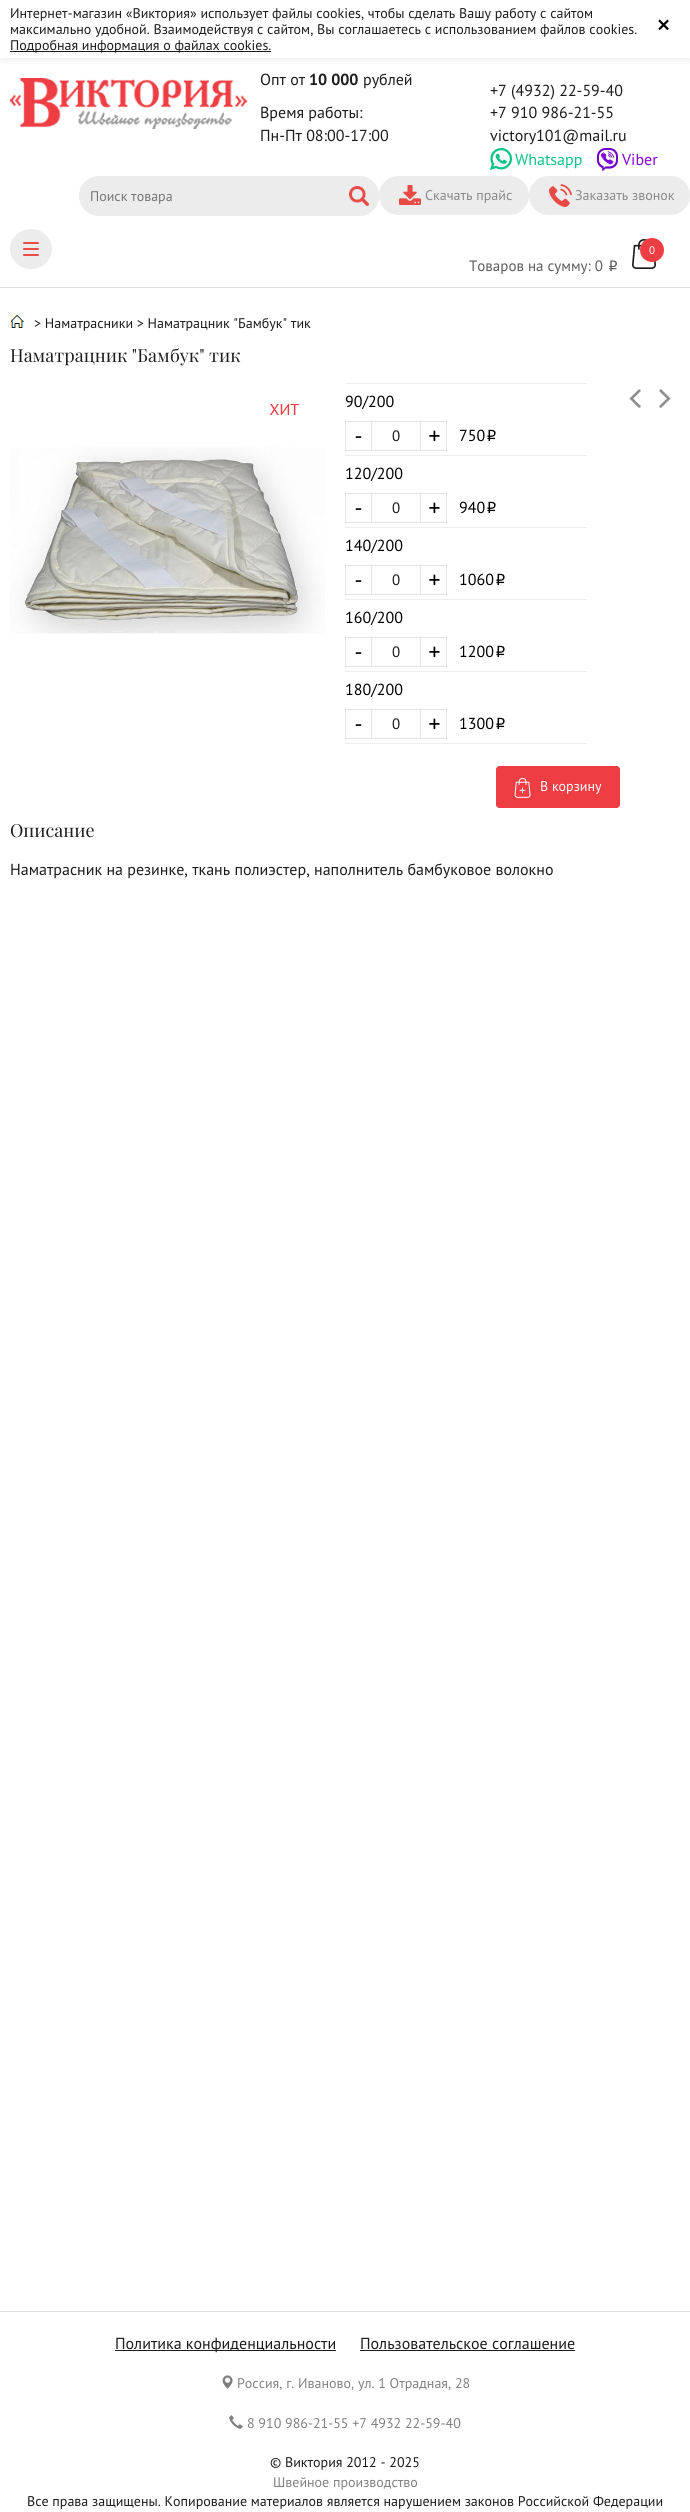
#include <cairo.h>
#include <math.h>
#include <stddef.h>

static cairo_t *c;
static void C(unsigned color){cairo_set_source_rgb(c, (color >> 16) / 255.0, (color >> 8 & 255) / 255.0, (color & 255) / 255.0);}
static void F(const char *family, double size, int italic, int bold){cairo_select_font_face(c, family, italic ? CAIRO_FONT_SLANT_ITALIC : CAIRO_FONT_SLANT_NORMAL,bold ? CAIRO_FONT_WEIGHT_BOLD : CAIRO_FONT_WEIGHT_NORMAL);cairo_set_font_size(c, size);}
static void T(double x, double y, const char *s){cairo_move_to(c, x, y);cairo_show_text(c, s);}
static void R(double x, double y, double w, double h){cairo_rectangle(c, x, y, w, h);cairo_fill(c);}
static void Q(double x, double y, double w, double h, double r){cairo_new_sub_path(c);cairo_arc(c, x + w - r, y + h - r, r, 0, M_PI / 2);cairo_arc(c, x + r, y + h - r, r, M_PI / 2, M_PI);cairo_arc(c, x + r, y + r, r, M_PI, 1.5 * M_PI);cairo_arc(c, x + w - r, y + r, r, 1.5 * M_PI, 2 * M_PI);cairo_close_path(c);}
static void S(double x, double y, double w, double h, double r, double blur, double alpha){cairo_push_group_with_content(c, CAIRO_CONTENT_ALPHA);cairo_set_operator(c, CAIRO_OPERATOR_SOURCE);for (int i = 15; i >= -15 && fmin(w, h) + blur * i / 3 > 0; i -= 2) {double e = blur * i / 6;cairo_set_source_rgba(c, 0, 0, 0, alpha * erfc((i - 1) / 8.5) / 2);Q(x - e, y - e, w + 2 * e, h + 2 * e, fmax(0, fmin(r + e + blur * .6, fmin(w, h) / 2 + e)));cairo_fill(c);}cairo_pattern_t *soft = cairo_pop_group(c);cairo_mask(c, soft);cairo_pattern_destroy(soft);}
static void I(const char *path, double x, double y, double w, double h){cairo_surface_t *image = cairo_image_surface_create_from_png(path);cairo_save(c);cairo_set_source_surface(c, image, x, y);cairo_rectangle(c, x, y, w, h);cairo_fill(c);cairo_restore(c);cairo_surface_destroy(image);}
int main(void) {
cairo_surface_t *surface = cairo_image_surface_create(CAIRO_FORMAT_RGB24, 690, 2512);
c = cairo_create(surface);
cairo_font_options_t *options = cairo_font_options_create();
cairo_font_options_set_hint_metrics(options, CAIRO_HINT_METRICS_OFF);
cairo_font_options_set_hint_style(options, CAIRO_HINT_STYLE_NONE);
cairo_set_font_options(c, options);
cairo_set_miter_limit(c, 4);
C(0xffffff);
cairo_paint(c);
I("1.png",10,78,238,51);
cairo_save(c);
cairo_rectangle(c,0,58,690,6);
cairo_clip(c);
C(0x000000);
S(0,0,690,58,0,7,.1);
cairo_restore(c);
F("PT Sans",14,0,0);
C(0x1c1c1c);
T(10,18,"Интернет-магазин «Виктория» использует файлы cookies, чтобы сделать Вашу работу с сайтом");
T(10,34,"максимально удобной. Взаимодействуя с сайтом, Вы соглашаетесь с использованием файлов cookies.");
F("PT Sans",30,0,0);
C(0x000000);
T(656,35,"×");
C(0x1c1c1c);
R(10,51,261,1);
F("PT Sans",14,0,0);
T(10,50,"Подробная информация о файлах cookies.");
F("PT Sans",16,0,0);
T(260,85,"Опт от");
F("PT Sans",16,0,1);
T(309,85,"10 000");
F("PT Sans",16,0,0);
T(363,85,"рублей");
T(260,118,"Время работы:");
T(260,141,"Пн-Пт 08:00-17:00");
T(490,96,"+7 (4932) 22-59-40");
T(490,118,"+7 910 986-21-55");
T(490,141,"victory101@mail.ru");
I("2.png",490,148,22,22);
C(0x0cc385);
T(515,165,"Whatsapp");
I("3.png",597,148,21,23);
C(0x8303dd);
T(622,165,"Viber");
C(0xececec);
Q(79.5,176.5,299,39,19.5);
cairo_fill_preserve(c);
cairo_set_line_width(c,1);
cairo_stroke(c);
F("PT Sans",14,0,0);
C(0x757575);
T(90,201,"Поиск товара");
C(0xececec);
cairo_new_path(c);
cairo_arc(c,359,196,20,0,2 * M_PI);
cairo_fill(c);
I("4.png",349,186,20,20);
Q(379,176,150,39,19.5);
cairo_fill(c);
I("5.png",399,185,22,20);
C(0x898989);
T(425,200,"Скачать прайс");
C(0xececec);
Q(529,176,161,39,19.5);
cairo_fill(c);
I("6.png",549,184,23,23);
C(0x898989);
T(575,200,"Заказать звонок");
C(0xececec);
cairo_new_path(c);
cairo_move_to(c,31,229);
cairo_curve_to(c,42.5,229,52,238,52,249);
cairo_curve_to(c,52,260,42.5,269,31,269);
cairo_curve_to(c,19.5,269,10,260,10,249);
cairo_curve_to(c,10,238,19.5,229,31,229);
cairo_close_path(c);
cairo_fill(c);
C(0xea4e49);
Q(23,242,16,2,1);
cairo_fill(c);
Q(23,248,16,2,1);
cairo_fill(c);
Q(23,254,16,2,1);
cairo_fill(c);
I("7.png",632,239,24,30);
C(0xee3d43);
cairo_arc(c,652,250,12,0,2 * M_PI);
cairo_fill(c);
F("PT Sans",11,0,0);
C(0xffffff);
T(649,254,"0");
F("PT Sans",15,0,0);
C(0x5c5c5c);
T(469,271,"Товаров на сумму: 0");
I("8.png",609,260,8,11);
C(0xdddddd);
R(0,287,690,1);
I("9.png",11,315,13,13);
F("PT Sans",14,0,0);
C(0x1c1c1c);
T(34,328,"> Наматрасники > Наматрацник \"Бамбук\" тик");
F("Playfair Display",18,0,0);
T(10,362,"Наматрацник \"Бамбук\" тик");
I("10.png",269,404,30,11);
I("11.png",10,447,315,187);
C(0xeeeeee);
R(345,383,242,1);
R(345,455,242,1);
F("PT Sans",16,0,0);
C(0x000000);
T(345,407,"90/200");
cairo_rectangle(c,371.5,421.5,49,29);
C(0xe4e4e4);
cairo_stroke(c);
cairo_rectangle(c,345.5,421.5,26,29);
cairo_stroke(c);
F("PT Sans",24,1,0);
C(0x000000);
T(354,444,"-");
F("PT Sans",15,0,0);
C(0x1c1c1c);
T(392,441,"0");
cairo_rectangle(c,420.5,421.5,26,29);
C(0xe4e4e4);
cairo_stroke(c);
F("PT Sans",24,1,0);
C(0x000000);
T(428,444,"+");
F("PT Sans",16,0,0);
T(459,441,"750");
I("12.png",487,429,9,12);
C(0xeeeeee);
R(345,527,242,1);
C(0x000000);
T(345,479,"120/200");
cairo_rectangle(c,371.5,493.5,49,29);
C(0xe4e4e4);
cairo_stroke(c);
cairo_rectangle(c,345.5,493.5,26,29);
cairo_stroke(c);
F("PT Sans",24,1,0);
C(0x000000);
T(354,516,"-");
F("PT Sans",15,0,0);
C(0x1c1c1c);
T(392,513,"0");
cairo_rectangle(c,420.5,493.5,26,29);
C(0xe4e4e4);
cairo_stroke(c);
F("PT Sans",24,1,0);
C(0x000000);
T(428,516,"+");
F("PT Sans",16,0,0);
T(459,513,"940");
I("12.png",487,501,9,12);
C(0xeeeeee);
R(345,599,242,1);
C(0x000000);
T(345,551,"140/200");
cairo_rectangle(c,371.5,565.5,49,29);
C(0xe4e4e4);
cairo_stroke(c);
cairo_rectangle(c,345.5,565.5,26,29);
cairo_stroke(c);
F("PT Sans",24,1,0);
C(0x000000);
T(354,588,"-");
F("PT Sans",15,0,0);
C(0x1c1c1c);
T(392,585,"0");
cairo_rectangle(c,420.5,565.5,26,29);
C(0xe4e4e4);
cairo_stroke(c);
F("PT Sans",24,1,0);
C(0x000000);
T(428,588,"+");
F("PT Sans",16,0,0);
T(459,585,"1060");
I("12.png",496,573,9,12);
C(0xeeeeee);
R(345,671,242,1);
C(0x000000);
T(345,623,"160/200");
cairo_rectangle(c,371.5,637.5,49,29);
C(0xe4e4e4);
cairo_stroke(c);
cairo_rectangle(c,345.5,637.5,26,29);
cairo_stroke(c);
F("PT Sans",24,1,0);
C(0x000000);
T(354,660,"-");
F("PT Sans",15,0,0);
C(0x1c1c1c);
T(392,657,"0");
cairo_rectangle(c,420.5,637.5,26,29);
C(0xe4e4e4);
cairo_stroke(c);
F("PT Sans",24,1,0);
C(0x000000);
T(428,660,"+");
F("PT Sans",16,0,0);
T(459,657,"1200");
I("12.png",496,645,9,12);
C(0xeeeeee);
R(345,743,242,1);
C(0x000000);
T(345,695,"180/200");
cairo_rectangle(c,371.5,709.5,49,29);
C(0xe4e4e4);
cairo_stroke(c);
cairo_rectangle(c,345.5,709.5,26,29);
cairo_stroke(c);
F("PT Sans",24,1,0);
C(0x000000);
T(354,732,"-");
F("PT Sans",15,0,0);
C(0x1c1c1c);
T(392,729,"0");
cairo_rectangle(c,420.5,709.5,26,29);
C(0xe4e4e4);
cairo_stroke(c);
F("PT Sans",24,1,0);
C(0x000000);
T(428,732,"+");
F("PT Sans",16,0,0);
T(459,729,"1300");
I("12.png",496,717,9,12);
C(0xee3d43);
Q(496,766,124,42,4);
cairo_fill(c);
I("13.png",514,777,17,21);
Q(496.5,766.5,123,41,3.5);
cairo_stroke(c);
F("PT Sans",14,0,0);
C(0xffffff);
T(540,791,"В корзину");
I("14.png",629,389,12,19);
I("15.png",659,389,12,19);
F("Playfair Display",18,0,0);
C(0x1c1c1c);
T(10,837,"Описание");
F("PT Sans",16,0,0);
T(10,875,"Наматрасник на резинке, ткань полиэстер, наполнитель бамбуковое волокно");
C(0xdddddd);
R(0,2311,690,1);
C(0x1c1c1c);
R(115,2350,221,1);
T(115,2349,"Политика конфиденциальности");
T(360,2349,"Пользовательское соглашение");
R(360,2350,215,1);
I("16.png",222,2375,11,14);
F("PT Sans",14,0,0);
C(0x818181);
T(237,2388,"Россия, г. Иваново, ул. 1 Отрадная, 28");
I("17.png",229,2415,14,14);
T(247,2428,"8 910 986-21-55 +7 4932 22-59-40");
C(0x1c1c1c);
T(270,2467,"© Виктория 2012 - 2025");
C(0x818181);
T(273,2487,"Швейное производство");
C(0x1c1c1c);
T(27,2506,"Все права защищены. Копирование материалов является нарушением законов Российской Федерации");
cairo_surface_write_to_png(surface, "o.png");
cairo_font_options_destroy(options);
cairo_destroy(c);
cairo_surface_destroy(surface);
return 0;
}
